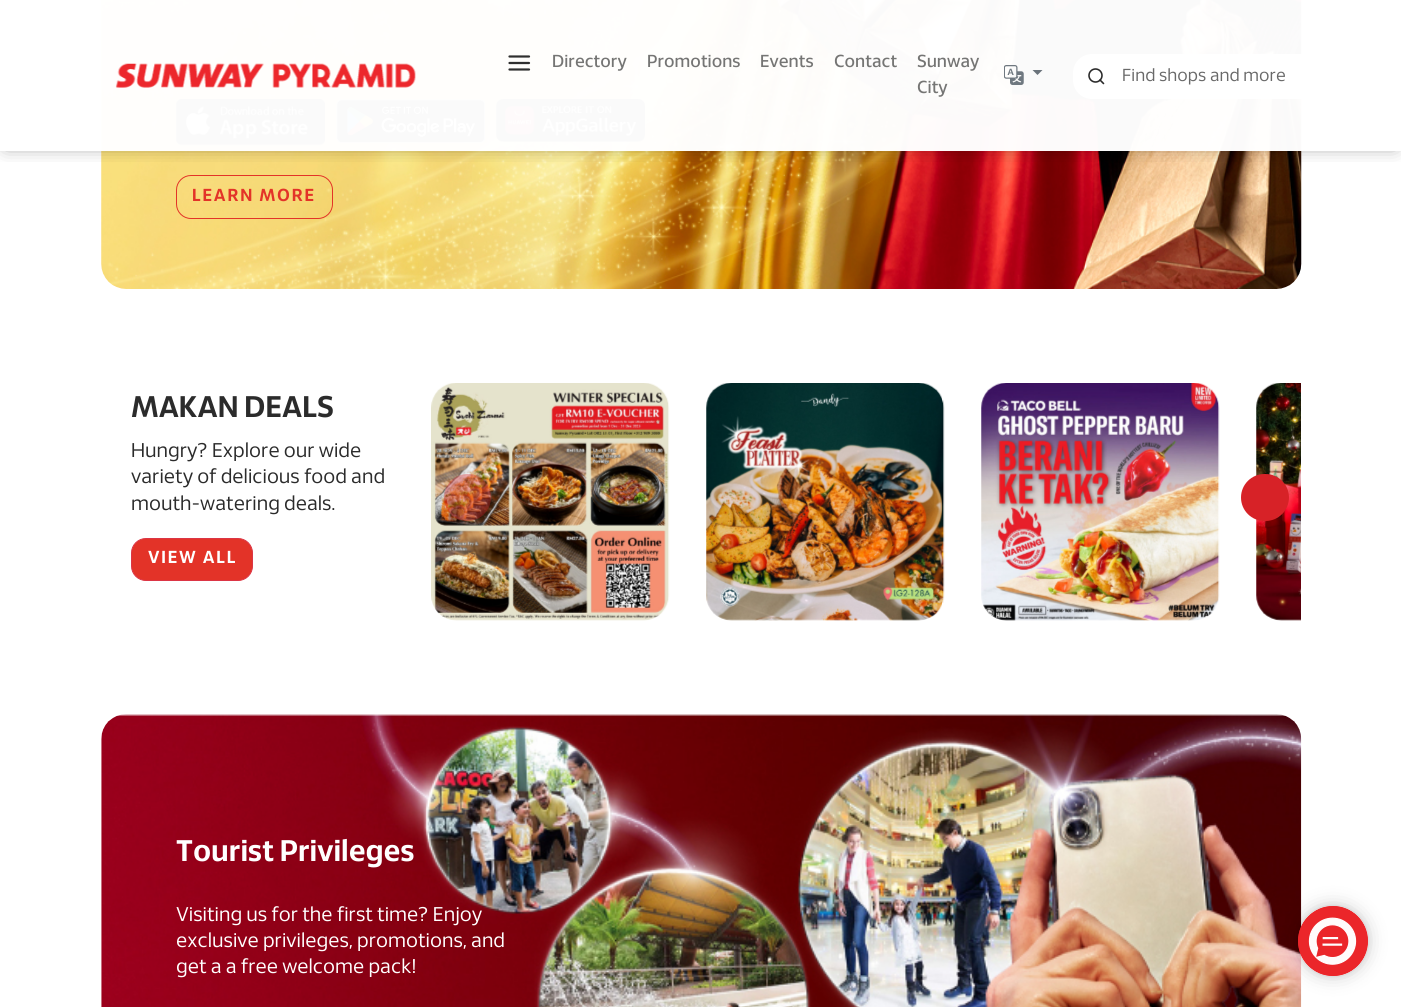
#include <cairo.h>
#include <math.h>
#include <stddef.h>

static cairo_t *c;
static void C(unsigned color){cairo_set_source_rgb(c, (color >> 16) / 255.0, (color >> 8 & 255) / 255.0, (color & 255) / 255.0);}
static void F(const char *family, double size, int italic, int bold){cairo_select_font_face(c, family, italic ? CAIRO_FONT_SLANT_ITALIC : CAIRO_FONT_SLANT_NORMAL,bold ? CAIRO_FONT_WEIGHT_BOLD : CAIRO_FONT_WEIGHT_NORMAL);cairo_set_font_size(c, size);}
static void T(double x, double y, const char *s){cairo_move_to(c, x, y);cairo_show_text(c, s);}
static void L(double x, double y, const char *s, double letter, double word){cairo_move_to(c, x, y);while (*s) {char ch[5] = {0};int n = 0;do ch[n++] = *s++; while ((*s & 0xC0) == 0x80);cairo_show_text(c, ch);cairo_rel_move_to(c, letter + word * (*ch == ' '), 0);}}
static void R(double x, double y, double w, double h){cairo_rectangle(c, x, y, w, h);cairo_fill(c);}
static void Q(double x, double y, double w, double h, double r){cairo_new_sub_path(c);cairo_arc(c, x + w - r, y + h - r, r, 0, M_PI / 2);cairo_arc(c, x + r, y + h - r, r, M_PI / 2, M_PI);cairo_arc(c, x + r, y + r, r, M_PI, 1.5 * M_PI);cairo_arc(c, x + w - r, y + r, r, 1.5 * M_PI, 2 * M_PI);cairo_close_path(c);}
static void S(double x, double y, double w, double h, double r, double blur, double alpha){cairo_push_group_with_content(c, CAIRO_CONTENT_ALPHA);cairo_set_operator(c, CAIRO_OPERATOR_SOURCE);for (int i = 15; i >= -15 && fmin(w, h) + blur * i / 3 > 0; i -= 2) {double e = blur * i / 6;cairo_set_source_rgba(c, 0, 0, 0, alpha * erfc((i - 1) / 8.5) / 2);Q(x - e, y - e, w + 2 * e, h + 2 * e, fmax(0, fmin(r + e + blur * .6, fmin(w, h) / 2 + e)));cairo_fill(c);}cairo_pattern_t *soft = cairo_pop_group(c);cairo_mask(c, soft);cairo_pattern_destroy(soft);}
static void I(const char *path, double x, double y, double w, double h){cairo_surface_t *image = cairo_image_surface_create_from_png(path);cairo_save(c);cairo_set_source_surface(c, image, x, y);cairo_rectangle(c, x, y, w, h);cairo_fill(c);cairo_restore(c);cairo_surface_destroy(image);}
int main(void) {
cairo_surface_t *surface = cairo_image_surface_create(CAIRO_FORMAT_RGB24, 1401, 1007);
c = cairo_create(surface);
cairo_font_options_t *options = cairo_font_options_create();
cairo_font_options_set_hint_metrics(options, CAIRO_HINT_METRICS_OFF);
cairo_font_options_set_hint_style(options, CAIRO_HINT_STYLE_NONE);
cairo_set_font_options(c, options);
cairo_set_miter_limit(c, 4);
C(0xffffff);
cairo_paint(c);
C(0xfff9f9);
Q(101,-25,1200,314,25);
cairo_fill(c);
I("3.png",101,0,1201,289);
I("4.png",176,99,149,47);
I("5.png",336,99,149,44);
I("6.png",496,99,149,43);
cairo_save(c);
cairo_rectangle(c,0,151,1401,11);
cairo_clip(c);
C(0x000000);
S(6,6,1389,139,0,9.5,.49);
cairo_restore(c);
cairo_set_source_rgba(c,1,1,1,0.98);
R(101,0,1201,151);
I("1.png",115,63,301,25);
cairo_new_path(c);
cairo_move_to(c,509.5,63);
cairo_line_to(c,529,63);
cairo_move_to(c,509.5,56.5);
cairo_line_to(c,529,56.5);
cairo_move_to(c,509.5,69.5);
cairo_line_to(c,529,69.5);
C(0x2f2f2f);
cairo_set_line_width(c,2.2);
cairo_set_line_cap(c,CAIRO_LINE_CAP_ROUND);
cairo_set_line_join(c,CAIRO_LINE_JOIN_ROUND);
cairo_stroke(c);
F("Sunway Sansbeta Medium",17.5,0,0);
C(0x757574);
T(552,67,"Directory");
T(647,67,"Promotions");
T(760,67,"Events");
T(834,67,"Contact");
T(917,67,"Sunway");
T(917,93,"City");
I("2.png",1004,65,20,20);
C(0x6a737b);
cairo_new_path(c);
cairo_move_to(c,1032.5,70);
cairo_line_to(c,1042.5,70);
cairo_line_to(c,1037.5,75);
cairo_close_path(c);
cairo_fill(c);
cairo_set_source_rgba(c,1,1,1,0.98);
Q(1073,54,275,45,19);
cairo_fill(c);
cairo_arc(c,1095.5,75.5,6.5,0,2 * M_PI);
C(0x2a2a2a);
cairo_set_line_width(c,1.6);
cairo_set_line_cap(c,CAIRO_LINE_CAP_BUTT);
cairo_set_line_join(c,CAIRO_LINE_JOIN_MITER);
cairo_stroke(c);
cairo_new_path(c);
cairo_move_to(c,1103.5,83.5);
cairo_line_to(c,1100,80);
cairo_set_line_cap(c,CAIRO_LINE_CAP_ROUND);
cairo_set_line_join(c,CAIRO_LINE_JOIN_ROUND);
cairo_stroke(c);
F("Sunway Sansbeta",17.5,0,0);
C(0x696969);
T(1122,81,"Find shops and more");
Q(176.5,175.5,156,43,14.5);
C(0xe33328);
cairo_set_line_width(c,1);
cairo_set_line_cap(c,CAIRO_LINE_CAP_BUTT);
cairo_set_line_join(c,CAIRO_LINE_JOIN_MITER);
cairo_stroke(c);
F("Sunway Sansbeta",17.5,0,1);
L(192,201,"LEARN MORE",1.75,0);
F("Sunway Sansbeta",30,0,1);
C(0x2b2b2b);
T(131,417,"MAKAN DEALS");
F("Sunway Sansbeta",20,0,0);
T(131,457,"Hungry? Explore our wide");
T(131,483,"variety of delicious food and");
T(131,510,"mouth-watering deals.");
C(0xe33328);
Q(131.5,538.5,121,42,14.5);
cairo_fill_preserve(c);
C(0xdc3545);
cairo_stroke(c);
F("Sunway Sansbeta",17.5,0,1);
C(0xffffff);
L(148,563,"VIEW ALL",1.75,0);
I("7.png",431,383,239,238);
I("8.png",706,383,239,238);
I("9.png",981,383,239,238);
I("10.png",1256,383,45,238);
cairo_set_source_rgba(c,0.843,0.133,0.153,0.35);
cairo_arc(c,467.5,497.5,23.5,0,2 * M_PI);
cairo_fill(c);
C(0xd72227);
Q(1241,474,48,47,23.5);
cairo_fill(c);
I("11.png",101,714,1201,293);
F("Sunway Sansbeta",30,0,1);
C(0xffffff);
T(176,861,"Tourist Privileges");
F("Sunway Sansbeta",20,0,0);
T(176,921,"Visiting us for the first time? Enjoy");
T(176,947,"exclusive privileges, promotions, and");
T(176,973,"get a a free welcome pack!");
cairo_save(c);
cairo_set_fill_rule(c,CAIRO_FILL_RULE_EVEN_ODD);
cairo_new_path(c);
cairo_move_to(c,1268,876);
cairo_line_to(c,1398,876);
cairo_line_to(c,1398,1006);
cairo_line_to(c,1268,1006);
cairo_close_path(c);
cairo_move_to(c,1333,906);
cairo_curve_to(c,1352.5,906,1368,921.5,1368,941);
cairo_curve_to(c,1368,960.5,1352.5,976,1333,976);
cairo_curve_to(c,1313.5,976,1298,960.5,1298,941);
cairo_curve_to(c,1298,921.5,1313.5,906,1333,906);
cairo_close_path(c);
cairo_clip(c);
C(0x000000);
S(1298,906,70,70,35,9.5,.2);
cairo_restore(c);
cairo_save(c);
cairo_set_fill_rule(c,CAIRO_FILL_RULE_EVEN_ODD);
cairo_new_path(c);
cairo_move_to(c,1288,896);
cairo_line_to(c,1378,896);
cairo_line_to(c,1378,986);
cairo_line_to(c,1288,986);
cairo_close_path(c);
cairo_move_to(c,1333,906);
cairo_curve_to(c,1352.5,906,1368,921.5,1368,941);
cairo_curve_to(c,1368,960.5,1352.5,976,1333,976);
cairo_curve_to(c,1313.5,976,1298,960.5,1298,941);
cairo_curve_to(c,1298,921.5,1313.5,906,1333,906);
cairo_close_path(c);
cairo_clip(c);
C(0x000000);
S(1298,906,70,70,35,3,.1);
cairo_restore(c);
cairo_set_source_rgba(c,0.922,0.149,0.165,0.98);
cairo_arc(c,1333,941,35,0,2 * M_PI);
cairo_fill(c);
I("12.png",1298,906,70,70);
cairo_surface_write_to_png(surface, "o.png");
cairo_font_options_destroy(options);
cairo_destroy(c);
cairo_surface_destroy(surface);
return 0;
}
